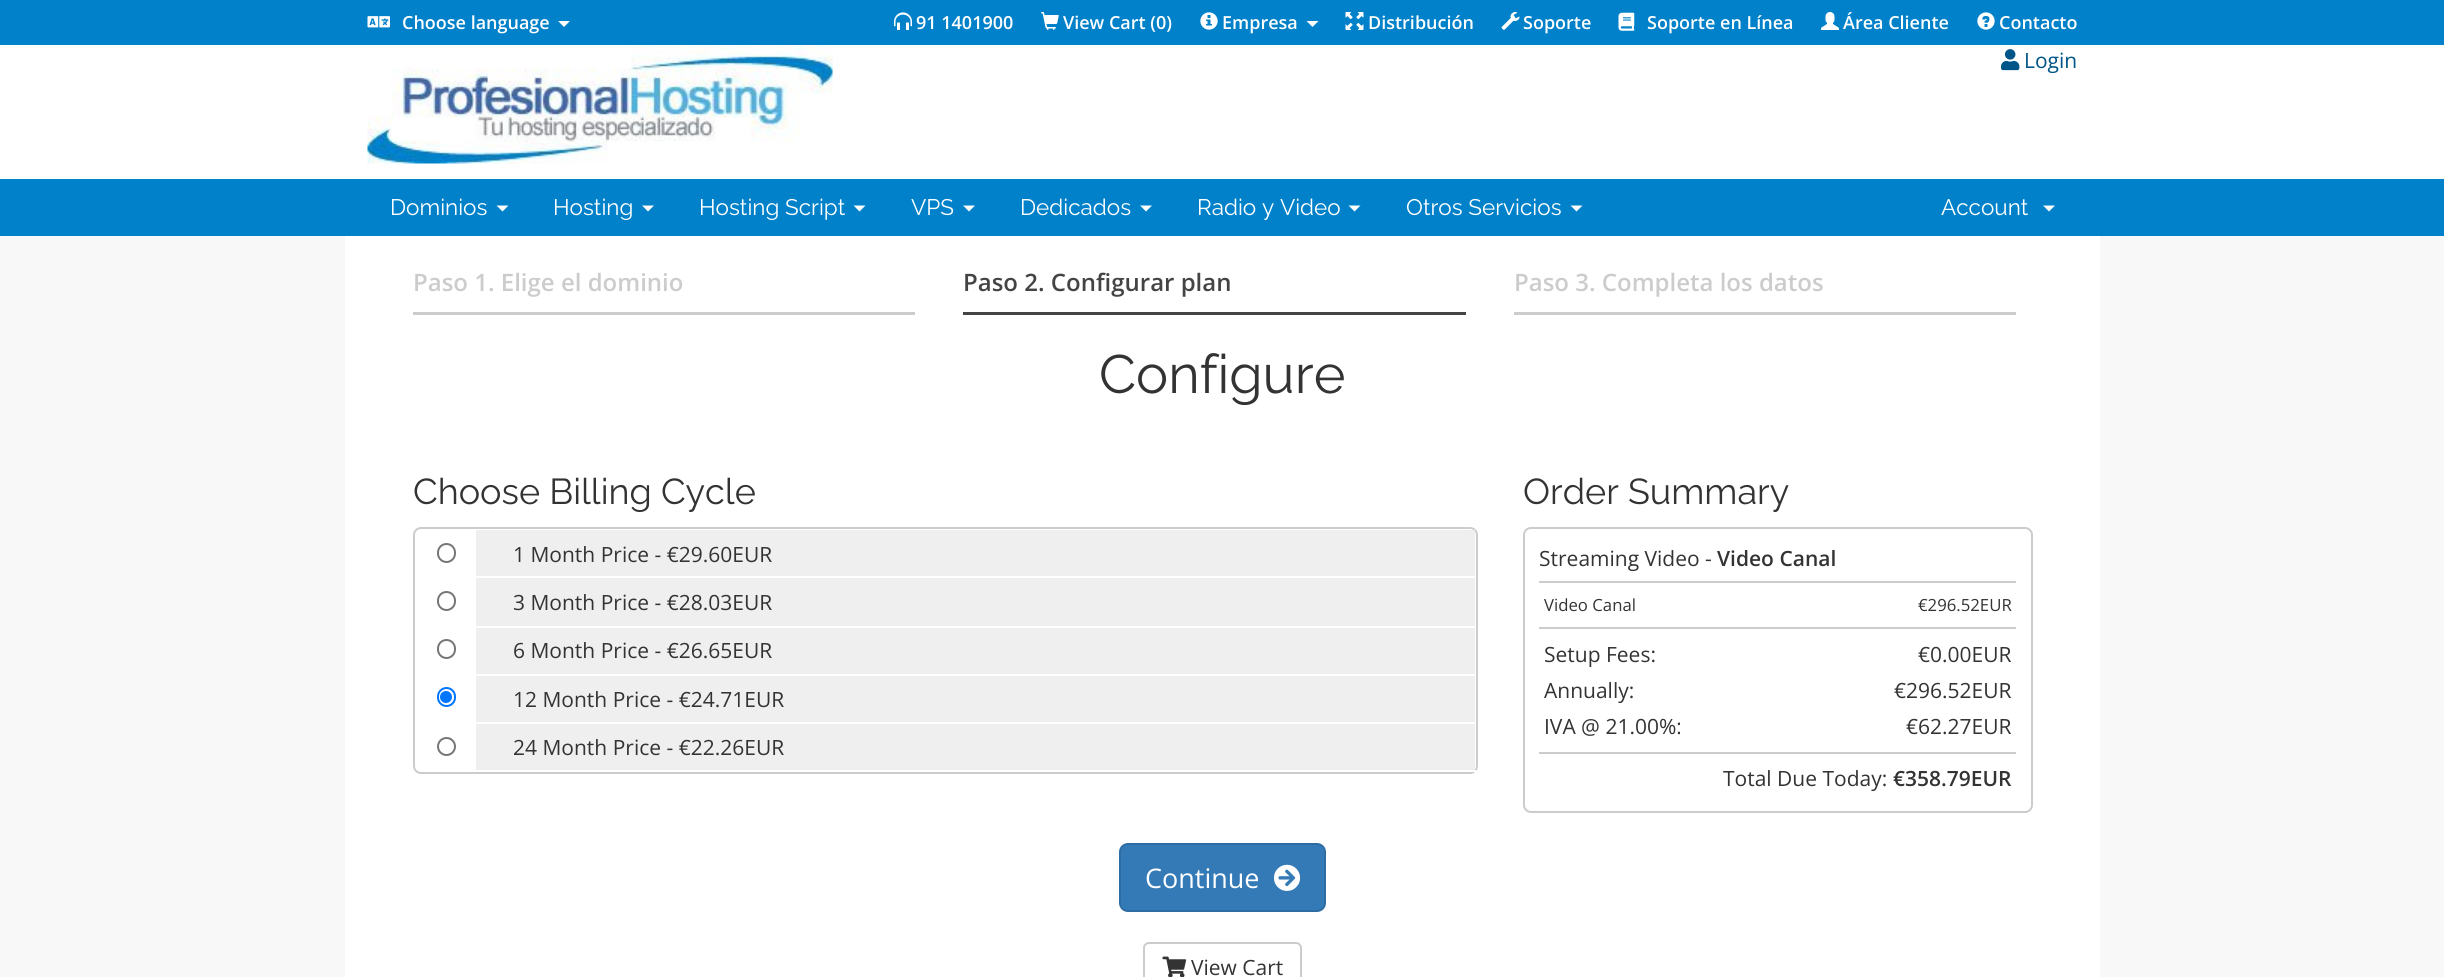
#include <cairo.h>
#include <math.h>
#include <stddef.h>

static cairo_t *c;
static void C(unsigned color){cairo_set_source_rgb(c, (color >> 16) / 255.0, (color >> 8 & 255) / 255.0, (color & 255) / 255.0);}
static void F(const char *family, double size, int italic, int bold){cairo_select_font_face(c, family, italic ? CAIRO_FONT_SLANT_ITALIC : CAIRO_FONT_SLANT_NORMAL,bold ? CAIRO_FONT_WEIGHT_BOLD : CAIRO_FONT_WEIGHT_NORMAL);cairo_set_font_size(c, size);}
static void T(double x, double y, const char *s){cairo_move_to(c, x, y);cairo_show_text(c, s);}
static void R(double x, double y, double w, double h){cairo_rectangle(c, x, y, w, h);cairo_fill(c);}
static void Q(double x, double y, double w, double h, double r){cairo_new_sub_path(c);cairo_arc(c, x + w - r, y + h - r, r, 0, M_PI / 2);cairo_arc(c, x + r, y + h - r, r, M_PI / 2, M_PI);cairo_arc(c, x + r, y + r, r, M_PI, 1.5 * M_PI);cairo_arc(c, x + w - r, y + r, r, 1.5 * M_PI, 2 * M_PI);cairo_close_path(c);}
static void I(const char *path, double x, double y, double w, double h){cairo_surface_t *image = cairo_image_surface_create_from_png(path);cairo_save(c);cairo_set_source_surface(c, image, x, y);cairo_rectangle(c, x, y, w, h);cairo_fill(c);cairo_restore(c);cairo_surface_destroy(image);}
int main(void) {
cairo_surface_t *surface = cairo_image_surface_create(CAIRO_FORMAT_RGB24, 2444, 977);
c = cairo_create(surface);
cairo_font_options_t *options = cairo_font_options_create();
cairo_font_options_set_hint_metrics(options, CAIRO_HINT_METRICS_OFF);
cairo_font_options_set_hint_style(options, CAIRO_HINT_STYLE_NONE);
cairo_set_font_options(c, options);
cairo_set_miter_limit(c, 4);
C(0xf8f8f8);
cairo_paint(c);
C(0xffffff);
R(0,45,2444,134);
C(0x0081c9);
R(0,0,2444,45);
I("1.png",367,16,23,12);
F("Open Sans SemiBold",18,0,0);
C(0xffffff);
T(402,29,"Choose language");
cairo_new_path(c);
cairo_move_to(c,558,21);
cairo_line_to(c,570,21);
cairo_line_to(c,564,27);
cairo_close_path(c);
cairo_fill(c);
I("2.png",894,12,18,18);
T(916,29,"91 1401900");
I("3.png",1041,12,18,18);
T(1063,29,"View Cart (0)");
I("4.png",1200,12,18,18);
T(1222,29,"Empresa");
cairo_new_path(c);
cairo_move_to(c,1306.5,21);
cairo_line_to(c,1318.5,21);
cairo_line_to(c,1312.5,27);
cairo_close_path(c);
cairo_fill(c);
I("5.png",1345,12,19,18);
T(1368,29,"Distribución");
I("6.png",1501,12,19,18);
T(1523,29,"Soporte");
I("7.png",1618,12,17,19);
T(1647,29,"Soporte en Línea");
I("8.png",1821,12,18,18);
T(1843,29,"Área Cliente");
I("9.png",1977,12,18,18);
T(1999,29,"Contacto");
I("10.png",367,45,466,119);
I("11.png",2001,49,19,22);
F("Open Sans",21,0,0);
C(0x005588);
T(2024,68,"Login");
C(0x0081c9);
R(0,179,2444,57);
F("Raleway",22.5,0,0);
C(0xffffff);
T(390,215,"Dominios");
cairo_new_path(c);
cairo_move_to(c,496.5,205.5);
cairo_line_to(c,508.5,205.5);
cairo_line_to(c,502.5,211.5);
cairo_close_path(c);
cairo_fill(c);
T(553,215,"Hosting");
cairo_new_path(c);
cairo_move_to(c,642,205.5);
cairo_line_to(c,654,205.5);
cairo_line_to(c,648,211.5);
cairo_close_path(c);
cairo_fill(c);
T(699,215,"Hosting Script");
cairo_new_path(c);
cairo_move_to(c,853.5,205.5);
cairo_line_to(c,865.5,205.5);
cairo_line_to(c,859.5,211.5);
cairo_close_path(c);
cairo_fill(c);
T(911,215,"VPS");
cairo_new_path(c);
cairo_move_to(c,963,205.5);
cairo_line_to(c,975,205.5);
cairo_line_to(c,969,211.5);
cairo_close_path(c);
cairo_fill(c);
T(1020,215,"Dedicados");
cairo_new_path(c);
cairo_move_to(c,1140,205.5);
cairo_line_to(c,1152,205.5);
cairo_line_to(c,1146,211.5);
cairo_close_path(c);
cairo_fill(c);
T(1197,215,"Radio y Video");
cairo_new_path(c);
cairo_move_to(c,1348.5,205.5);
cairo_line_to(c,1360.5,205.5);
cairo_line_to(c,1354.5,211.5);
cairo_close_path(c);
cairo_fill(c);
T(1406,215,"Otros Servicios");
cairo_new_path(c);
cairo_move_to(c,1570.5,205.5);
cairo_line_to(c,1582.5,205.5);
cairo_line_to(c,1576.5,211.5);
cairo_close_path(c);
cairo_fill(c);
T(1941,215,"Account");
cairo_new_path(c);
cairo_move_to(c,2043,205.5);
cairo_line_to(c,2055,205.5);
cairo_line_to(c,2049,211.5);
cairo_close_path(c);
cairo_fill(c);
R(345,236,1755,741);
C(0xcccccc);
R(413,312,502,3);
F("Open Sans SemiBold",24,0,0);
T(413,291,"Paso 1. Elige el dominio");
C(0x444444);
R(963,312,503,3);
T(963,291,"Paso 2. Configurar plan");
C(0xcccccc);
R(1514,312,502,3);
T(1514,291,"Paso 3. Completa los datos");
F("Raleway",54,0,0);
C(0x333333);
T(1099,393,"Configure");
F("Raleway",36,0,0);
T(413,504,"Choose Billing Cycle");
Q(414,528,1063,245,7);
C(0xcccccc);
cairo_stroke(c);
Q(438,544,17,18,8.5);
C(0x767676);
cairo_stroke(c);
C(0xefefef);
R(476,530,999,46);
F("Open Sans",21,0,0);
C(0x333333);
T(513,562,"1 Month Price - €29.60EUR");
Q(438,592,17,18,8.5);
C(0x767676);
cairo_stroke(c);
C(0xefefef);
R(476,578,999,48);
C(0x333333);
T(513,610,"3 Month Price - €28.03EUR");
Q(438,640,17,18,8.5);
C(0x767676);
cairo_stroke(c);
C(0xefefef);
R(476,628,999,46);
C(0x333333);
T(513,658,"6 Month Price - €26.65EUR");
Q(438,688,17,18,8.5);
C(0x0075ff);
cairo_stroke(c);
cairo_arc(c,446,697,6,0,2 * M_PI);
cairo_fill(c);
C(0xefefef);
R(476,676,999,46);
C(0x333333);
T(513,707,"12 Month Price - €24.71EUR");
cairo_new_path(c);
cairo_arc(c,446.5,746.5,8.5,0,2 * M_PI);
C(0x767676);
cairo_stroke(c);
C(0xefefef);
R(476,724,999,46);
C(0xffffff);
R(1471,770,5,2);
C(0x333333);
T(513,755,"24 Month Price - €22.26EUR");
F("Raleway",36,0,0);
T(1523,504,"Order Summary");
Q(1524,528,508,284,7);
C(0xcccccc);
cairo_stroke(c);
R(1539,581,477,2);
F("Open Sans",21,0,0);
C(0x333333);
T(1539,566,"Streaming Video -");
F("Open Sans SemiBold",21,0,0);
T(1717,566,"Video Canal");
F("Open Sans",16.75,0,0);
T(1544,611,"Video Canal");
T(1918,611,"€296.52EUR");
C(0xcccccc);
R(1539,627,477,2);
F("Open Sans",21,0,0);
C(0x333333);
T(1544,662,"Setup Fees:");
T(1918,662,"€0.00EUR");
T(1544,698,"Annually:");
T(1894,698,"€296.52EUR");
T(1544,734,"IVA @ 21.00%:");
T(1906,734,"€62.27EUR");
C(0xcccccc);
R(1539,752,477,2);
C(0x333333);
T(1723,786,"Total Due Today:");
F("Open Sans SemiBold",21,0,0);
T(1893,786,"€358.79EUR");
C(0x337ab7);
Q(1120,844,205,67,8);
cairo_fill_preserve(c);
C(0x2e6da4);
cairo_stroke(c);
F("Open Sans",27,0,0);
C(0xffffff);
T(1145,888,"Continue");
I("12.png",1273,864,28,27);
Q(1144,943,157,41,5);
C(0xcccccc);
cairo_stroke(c);
I("13.png",1162,956,25,21);
F("Open Sans",21,0,0);
C(0x333333);
T(1191,975,"View Cart");
cairo_surface_write_to_png(surface, "o.png");
cairo_font_options_destroy(options);
cairo_destroy(c);
cairo_surface_destroy(surface);
return 0;
}
